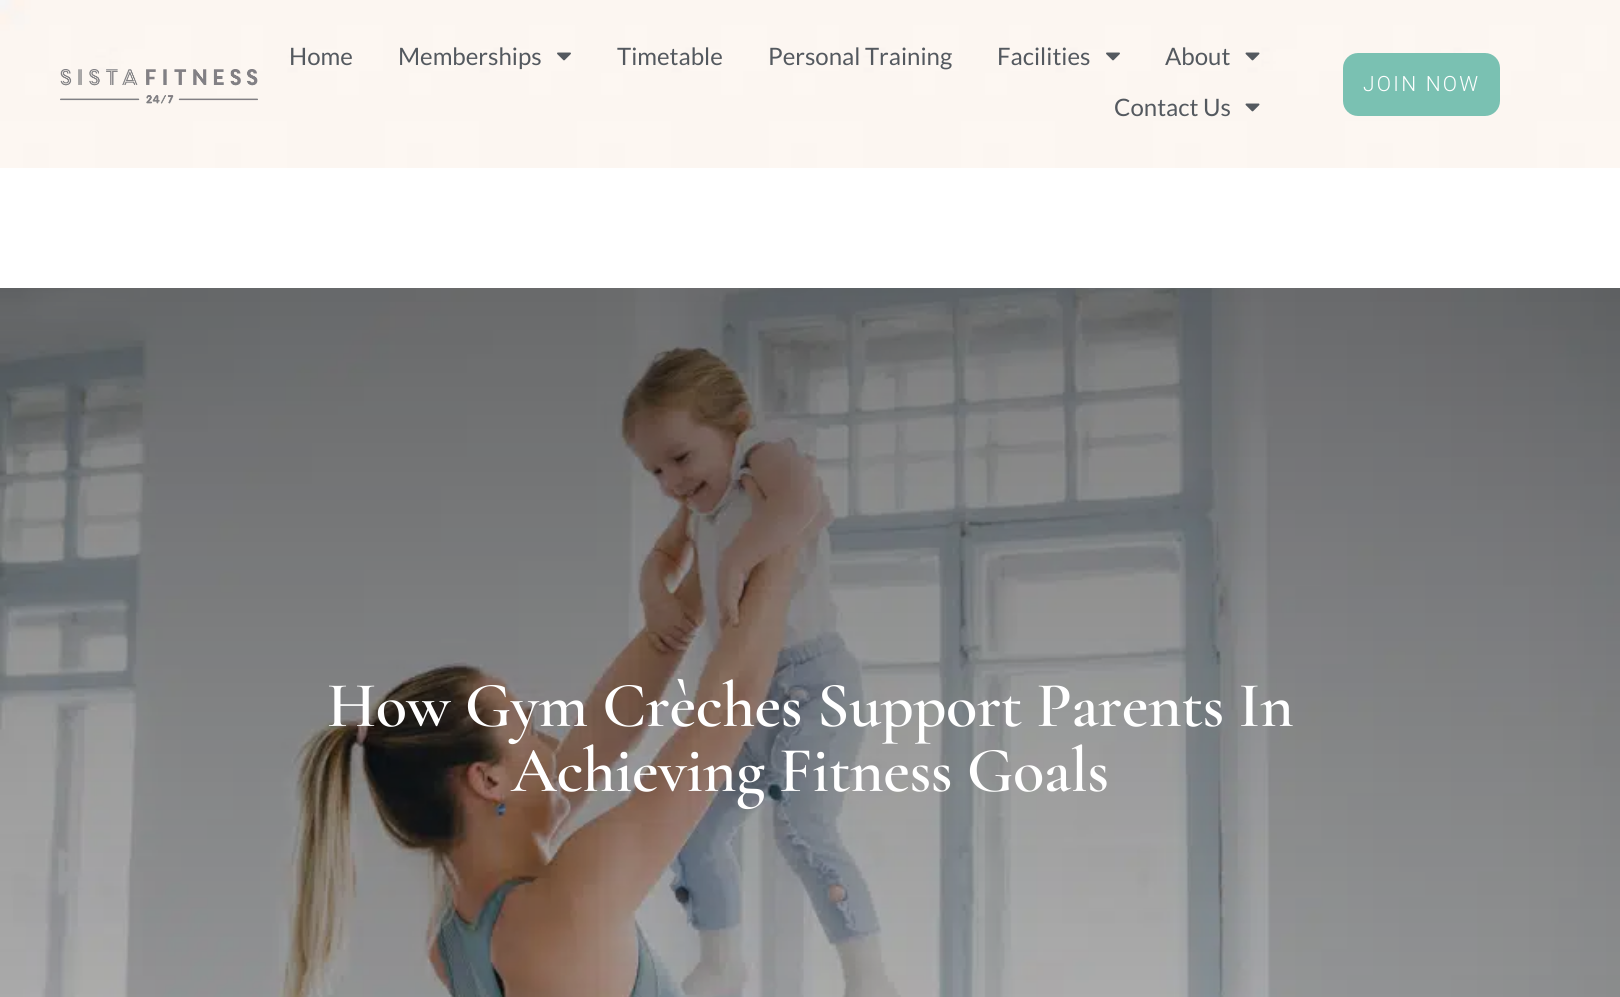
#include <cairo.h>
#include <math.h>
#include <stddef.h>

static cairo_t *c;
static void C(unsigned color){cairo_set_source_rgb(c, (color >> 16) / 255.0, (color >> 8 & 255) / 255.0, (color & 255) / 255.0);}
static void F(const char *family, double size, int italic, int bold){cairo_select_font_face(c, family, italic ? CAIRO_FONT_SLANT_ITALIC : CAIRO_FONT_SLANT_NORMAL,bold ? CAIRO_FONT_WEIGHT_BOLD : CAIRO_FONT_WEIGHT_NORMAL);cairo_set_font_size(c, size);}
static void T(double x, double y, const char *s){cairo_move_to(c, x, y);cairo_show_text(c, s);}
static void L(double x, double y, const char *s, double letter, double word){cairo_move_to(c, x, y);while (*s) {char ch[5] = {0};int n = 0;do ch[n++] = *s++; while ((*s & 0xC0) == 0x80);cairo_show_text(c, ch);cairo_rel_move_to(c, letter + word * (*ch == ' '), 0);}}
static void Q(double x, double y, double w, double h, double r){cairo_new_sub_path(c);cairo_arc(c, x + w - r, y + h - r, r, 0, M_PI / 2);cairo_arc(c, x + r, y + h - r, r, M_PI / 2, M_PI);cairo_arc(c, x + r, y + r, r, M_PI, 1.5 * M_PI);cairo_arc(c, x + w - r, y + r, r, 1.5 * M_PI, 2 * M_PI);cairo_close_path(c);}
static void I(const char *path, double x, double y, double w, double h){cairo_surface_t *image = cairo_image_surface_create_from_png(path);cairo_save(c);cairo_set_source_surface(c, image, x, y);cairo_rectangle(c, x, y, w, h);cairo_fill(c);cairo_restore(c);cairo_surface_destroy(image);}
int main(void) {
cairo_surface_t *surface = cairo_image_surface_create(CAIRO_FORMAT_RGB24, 1620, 997);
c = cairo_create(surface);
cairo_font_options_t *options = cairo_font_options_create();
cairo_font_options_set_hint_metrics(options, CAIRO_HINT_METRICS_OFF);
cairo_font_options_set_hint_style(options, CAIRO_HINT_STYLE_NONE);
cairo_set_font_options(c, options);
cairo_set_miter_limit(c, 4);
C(0xffffff);
cairo_paint(c);
I("1.png",0,0,1620,168);
I("2.png",60,69,198,35);
F("Lato",24,0,0);
C(0x54595f);
T(289,65,"Home");
T(398,65,"Memberships");
I("3.png",557,52,14,9);
T(617,65,"Timetable");
T(768,65,"Personal Training");
T(997,65,"Facilities");
I("3.png",1106,52,14,9);
T(1165,65,"About");
I("4.png",1245,52,15,9);
T(1114,116,"Contact Us");
I("5.png",1245,103,15,9);
C(0x7ac1b2);
Q(1344,54,155,61,14);
cairo_fill_preserve(c);
cairo_stroke(c);
F("Roboto Light",21,0,0);
C(0xffffff);
L(1363,91,"JOIN NOW",2.25,0);
I("6.png",0,288,1620,709);
F("Cormorant Garamond SemiBold",64.5,0,0);
L(327,726,"How Gym Crèches Support Parents In",-.45,0);
L(511,791,"Achieving Fitness Goals",-.45,0);
cairo_surface_write_to_png(surface, "o.png");
cairo_font_options_destroy(options);
cairo_destroy(c);
cairo_surface_destroy(surface);
return 0;
}
